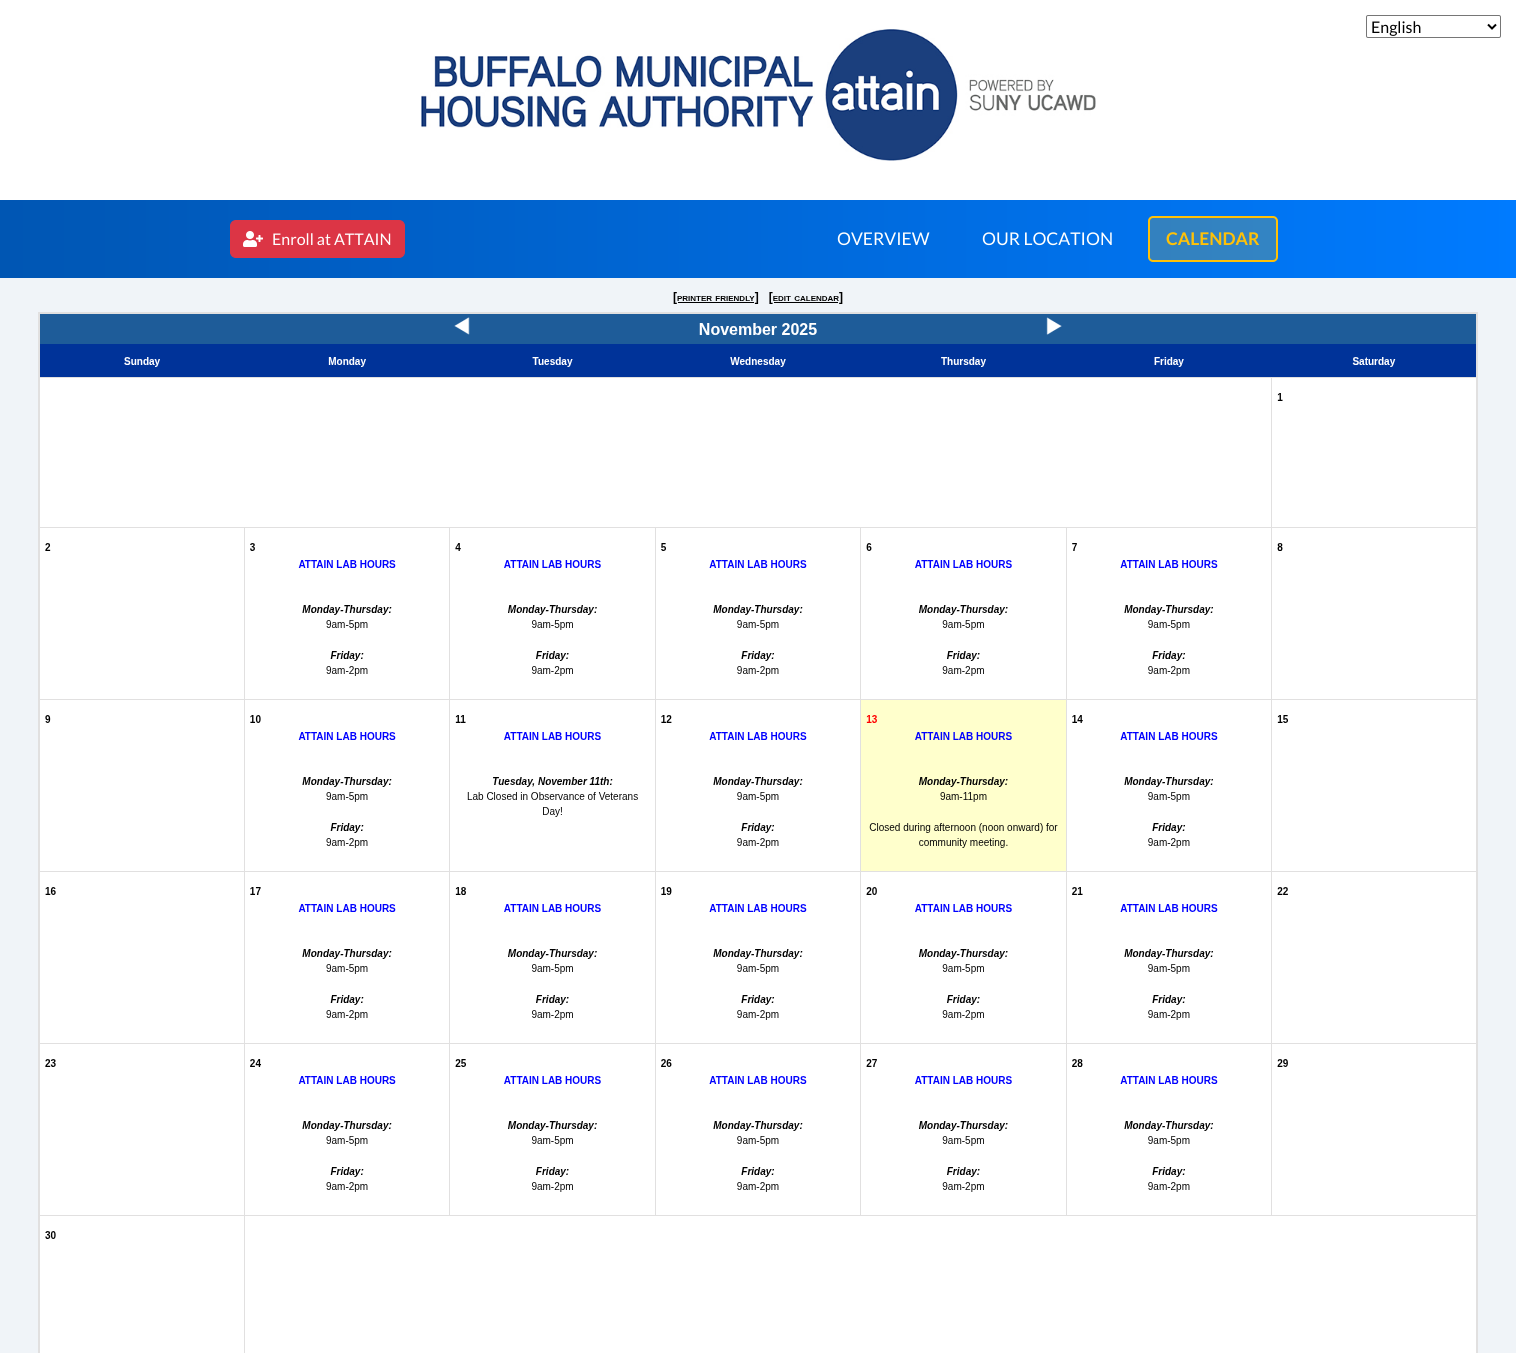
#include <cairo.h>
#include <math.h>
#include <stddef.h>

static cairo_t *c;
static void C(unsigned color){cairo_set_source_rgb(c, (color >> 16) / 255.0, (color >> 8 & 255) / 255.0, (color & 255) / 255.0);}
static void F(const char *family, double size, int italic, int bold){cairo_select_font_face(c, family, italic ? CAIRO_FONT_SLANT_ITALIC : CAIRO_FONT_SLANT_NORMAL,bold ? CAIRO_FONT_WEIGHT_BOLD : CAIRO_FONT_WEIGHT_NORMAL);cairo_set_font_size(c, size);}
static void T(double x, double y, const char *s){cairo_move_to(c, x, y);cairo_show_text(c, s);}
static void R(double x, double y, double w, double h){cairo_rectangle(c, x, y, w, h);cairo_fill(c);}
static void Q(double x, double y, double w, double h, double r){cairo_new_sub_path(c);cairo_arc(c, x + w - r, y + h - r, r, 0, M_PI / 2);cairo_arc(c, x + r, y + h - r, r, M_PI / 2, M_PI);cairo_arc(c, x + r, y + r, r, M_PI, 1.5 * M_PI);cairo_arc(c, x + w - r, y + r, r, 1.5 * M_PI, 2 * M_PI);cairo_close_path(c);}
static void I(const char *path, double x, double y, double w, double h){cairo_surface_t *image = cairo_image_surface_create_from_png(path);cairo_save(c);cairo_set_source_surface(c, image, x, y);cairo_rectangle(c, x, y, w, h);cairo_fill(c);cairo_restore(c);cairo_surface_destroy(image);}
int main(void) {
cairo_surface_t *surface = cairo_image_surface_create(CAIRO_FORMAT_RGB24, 1516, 1353);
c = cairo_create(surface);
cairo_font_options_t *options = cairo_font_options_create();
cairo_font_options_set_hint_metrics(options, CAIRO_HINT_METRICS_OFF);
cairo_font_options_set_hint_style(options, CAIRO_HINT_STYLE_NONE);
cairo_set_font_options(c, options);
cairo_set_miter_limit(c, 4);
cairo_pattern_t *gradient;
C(0xffffff);
cairo_paint(c);
Q(1366.5,15.5,134,22,1.5);
C(0x767676);
cairo_set_line_width(c,1);
cairo_stroke(c);
cairo_new_path(c);
cairo_move_to(c,1488,24.5);
cairo_line_to(c,1492,28.5);
cairo_line_to(c,1496,24.5);
C(0x000000);
cairo_set_line_width(c,2);
cairo_stroke(c);
F("Lato",16,0,0);
T(1371,33,"English");
I("1.png",421,29,675,132);
gradient = cairo_pattern_create_linear(0,239,1516,239);
cairo_pattern_add_color_stop_rgba(gradient,0,0,0.337,0.702,1);
cairo_pattern_add_color_stop_rgba(gradient,1,0,0.482,1,1);
cairo_set_source(c,gradient);
cairo_pattern_destroy(gradient);
R(0,200,1516,78);
C(0xdc3545);
Q(230.5,220.5,174,37,5.5);
cairo_fill_preserve(c);
cairo_set_line_width(c,1);
cairo_stroke(c);
I("2.png",243,231,20,16);
C(0xffffff);
T(272,245,"Enroll at ATTAIN");
F("Lato",17.5,0,0);
T(837,245,"OVERVIEW");
T(982,245,"OUR LOCATION");
cairo_set_source_rgba(c,1,0.757,0.027,0.2);
Q(1149,217,128,44,4);
cairo_fill_preserve(c);
C(0xffc107);
cairo_set_line_width(c,2);
cairo_stroke(c);
F("Lato",17.5,0,1);
T(1166,245,"CALENDAR");
I("3.png",0,278,1516,1075);
cairo_surface_write_to_png(surface, "o.png");
cairo_font_options_destroy(options);
cairo_destroy(c);
cairo_surface_destroy(surface);
return 0;
}
